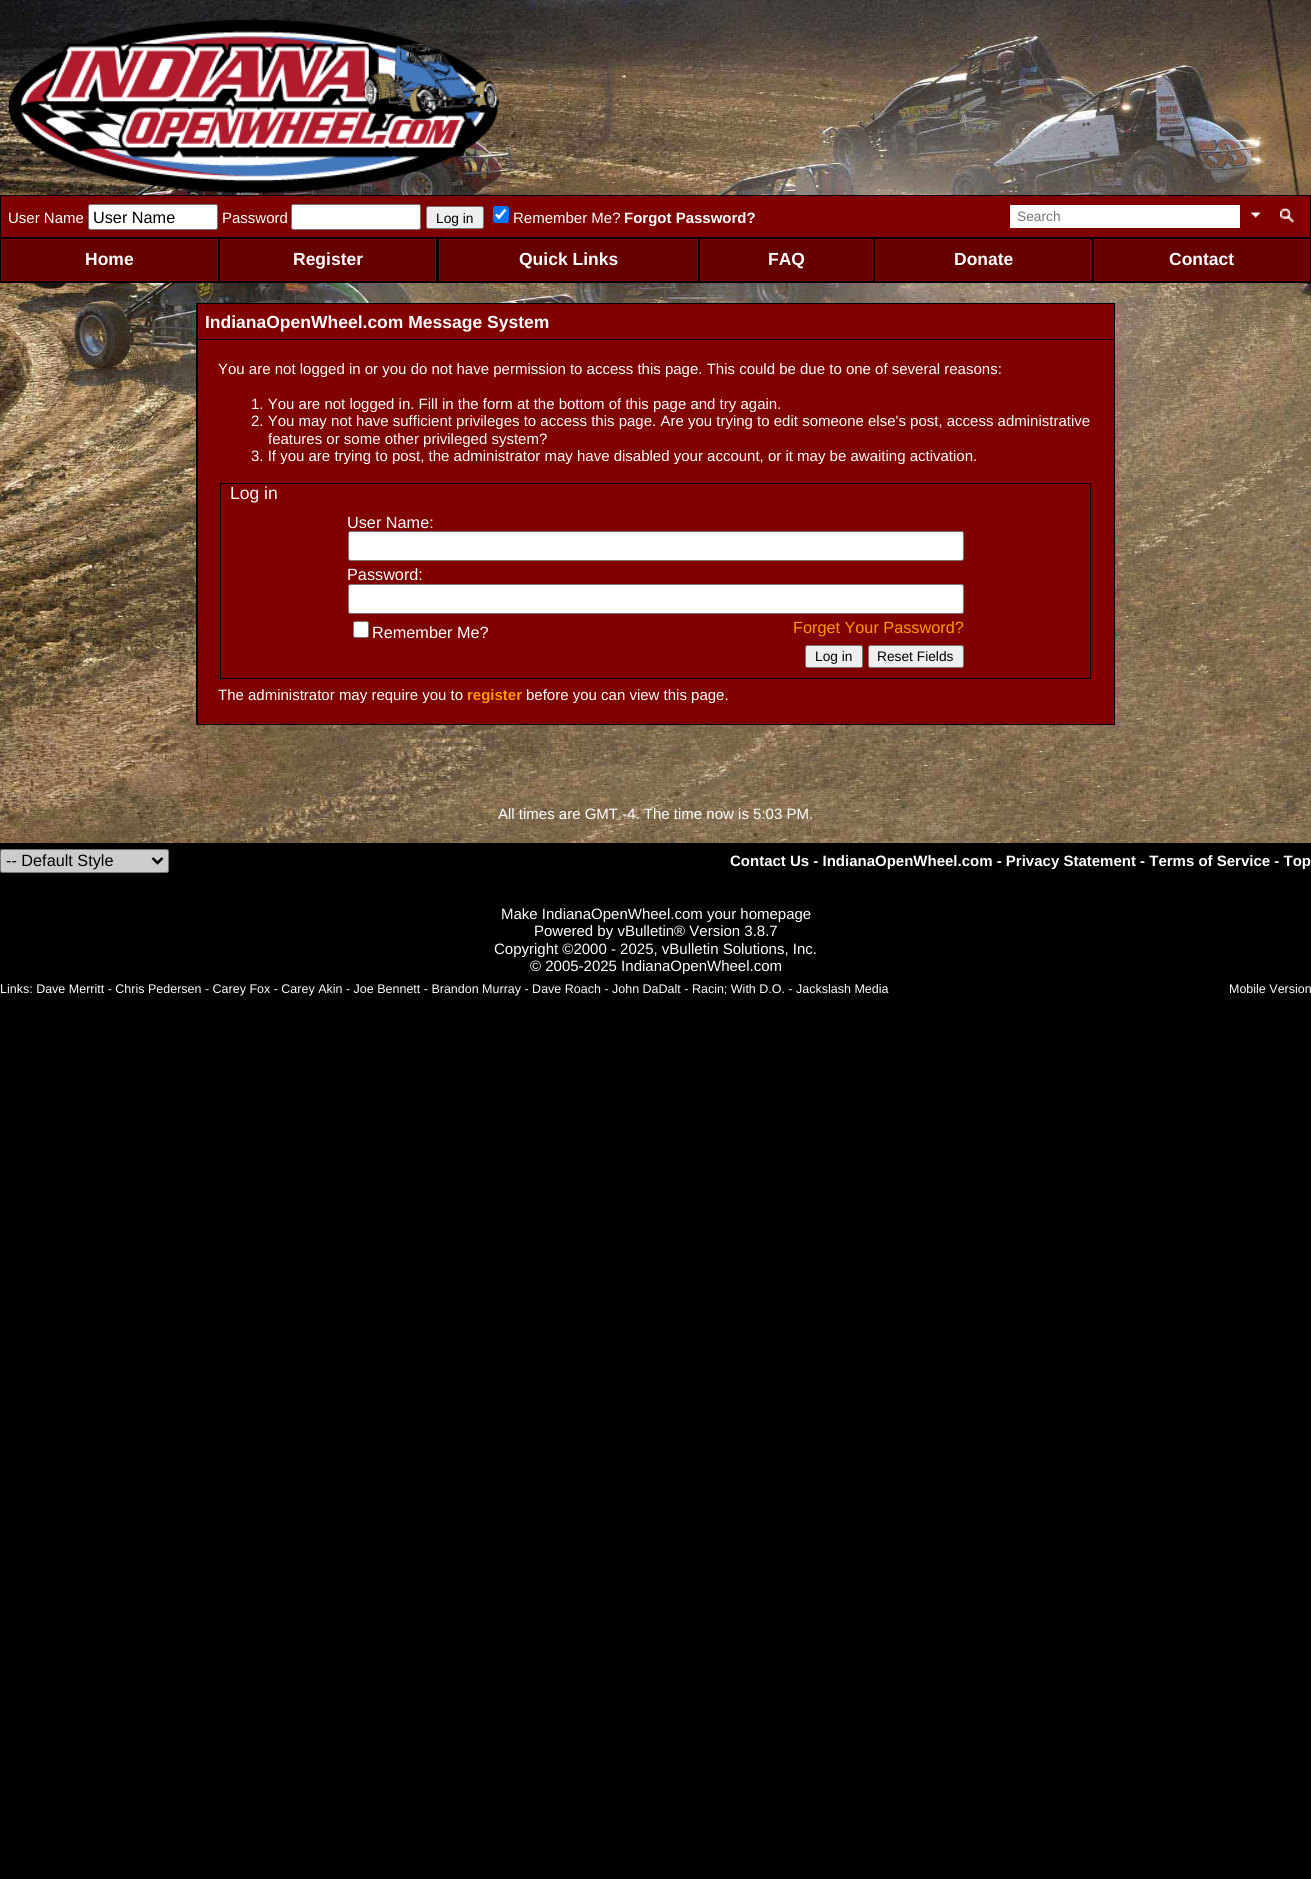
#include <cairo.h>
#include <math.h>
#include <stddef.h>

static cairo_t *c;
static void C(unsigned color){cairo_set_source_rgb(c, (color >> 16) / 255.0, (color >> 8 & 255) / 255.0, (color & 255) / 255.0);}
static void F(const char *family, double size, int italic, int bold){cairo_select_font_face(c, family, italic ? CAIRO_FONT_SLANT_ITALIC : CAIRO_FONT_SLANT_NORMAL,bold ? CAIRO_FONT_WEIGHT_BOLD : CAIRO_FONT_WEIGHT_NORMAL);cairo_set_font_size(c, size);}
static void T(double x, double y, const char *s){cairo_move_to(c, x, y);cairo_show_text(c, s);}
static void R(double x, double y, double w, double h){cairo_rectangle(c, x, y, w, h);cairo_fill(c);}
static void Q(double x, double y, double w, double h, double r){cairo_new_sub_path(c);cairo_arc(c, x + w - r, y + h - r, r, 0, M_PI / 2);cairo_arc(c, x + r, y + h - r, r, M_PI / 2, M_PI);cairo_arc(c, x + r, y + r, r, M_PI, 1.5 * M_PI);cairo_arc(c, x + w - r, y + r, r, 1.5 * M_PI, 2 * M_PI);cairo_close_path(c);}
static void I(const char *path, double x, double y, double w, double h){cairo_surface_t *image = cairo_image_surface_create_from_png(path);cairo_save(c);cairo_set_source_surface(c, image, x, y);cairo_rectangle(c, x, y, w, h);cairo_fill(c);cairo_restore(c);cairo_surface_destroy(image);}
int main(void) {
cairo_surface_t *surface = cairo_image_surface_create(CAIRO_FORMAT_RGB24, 1311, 1879);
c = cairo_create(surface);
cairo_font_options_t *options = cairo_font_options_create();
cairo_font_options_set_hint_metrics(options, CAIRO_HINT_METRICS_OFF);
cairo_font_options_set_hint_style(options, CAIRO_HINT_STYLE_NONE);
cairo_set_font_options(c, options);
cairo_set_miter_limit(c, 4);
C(0x000000);
cairo_paint(c);
I("1.png",0,0,1311,843);
I("2.png",8,19,492,175);
C(0x800000);
cairo_rectangle(c,.5,195.5,1310,42);
cairo_fill_preserve(c);
C(0x000000);
cairo_set_line_width(c,1);
cairo_stroke(c);
F("Liberation Sans",15,0,0);
C(0xffffff);
T(8,223,"User Name");
Q(88.5,204.5,129,25,2);
cairo_fill_preserve(c);
C(0x767676);
cairo_stroke(c);
F("Liberation Sans",16.25,0,0);
C(0x000000);
T(93,223,"User Name");
F("Liberation Sans",15,0,0);
C(0xffffff);
T(222,223,"Password");
Q(291.5,204.5,129,25,2);
cairo_fill_preserve(c);
C(0x767676);
cairo_stroke(c);
C(0xefefef);
Q(426.5,206.5,57,22,2);
cairo_fill_preserve(c);
C(0x767676);
cairo_stroke(c);
F("Liberation Sans",13.75,0,0);
C(0x000000);
T(436,223,"Log in");
C(0x0075ff);
Q(493,206,16,17,2.5);
cairo_fill(c);
cairo_new_path(c);
cairo_move_to(c,496,214.5);
cairo_line_to(c,499,217.5);
cairo_line_to(c,505.5,209.5);
C(0xffffff);
cairo_set_line_width(c,2.6);
cairo_stroke(c);
F("Liberation Sans",15,0,0);
T(513,223,"Remember Me?");
F("Liberation Sans",15,0,1);
T(624,223,"Forgot Password?");
R(1010,205,230,23);
F("Liberation Sans",13.75,0,0);
C(0x757575);
T(1017,221,"Search");
I("3.png",1251,212,9,6);
I("4.png",1280,208,14,15);
C(0x000000);
R(0,238,1311,45);
C(0x660000);
cairo_rectangle(c,1.5,239.5,216,41);
cairo_fill_preserve(c);
C(0x800000);
cairo_set_line_width(c,1);
cairo_stroke(c);
F("Liberation Sans",17.5,0,1);
C(0xffffff);
T(85,265,"Home");
C(0x660000);
cairo_rectangle(c,220.5,239.5,215,41);
cairo_fill_preserve(c);
C(0x800000);
cairo_stroke(c);
C(0xffffff);
T(293,265,"Register");
C(0x660000);
cairo_rectangle(c,439.5,239.5,258,41);
cairo_fill_preserve(c);
C(0x800000);
cairo_stroke(c);
C(0xffffff);
T(519,265,"Quick Links");
C(0x660000);
cairo_rectangle(c,700.5,239.5,172,41);
cairo_fill_preserve(c);
C(0x800000);
cairo_stroke(c);
C(0xffffff);
T(768,265,"FAQ");
C(0x660000);
cairo_rectangle(c,875.5,239.5,215,41);
cairo_fill_preserve(c);
C(0x800000);
cairo_stroke(c);
C(0xffffff);
T(954,265,"Donate");
C(0x660000);
cairo_rectangle(c,1094.5,239.5,215,41);
cairo_fill_preserve(c);
C(0x800000);
cairo_stroke(c);
C(0xffffff);
T(1169,265,"Contact");
C(0x000000);
R(196,303,919,422);
C(0x800000);
R(198,304,916,35);
C(0xffffff);
T(205,328,"IndianaOpenWheel.com Message System");
C(0x800000);
R(198,340,916,384);
F("Liberation Sans",15,0,0);
C(0xffffff);
T(218,374,"You are not logged in or you do not have permission to access this page. This could be due to one of several reasons:");
T(251,409,"1. You are not logged in. Fill in the form at the bottom of this page and try again.");
T(251,426,"2. You may not have sufficient privileges to access this page. Are you trying to edit someone else's post, access administrative");
T(268,444,"features or some other privileged system?");
T(251,461,"3. If you are trying to post, the administrator may have disabled your account, or it may be awaiting activation.");
cairo_rectangle(c,220.5,483.5,870,195);
C(0x000000);
cairo_stroke(c);
F("Liberation Sans",17.5,0,0);
C(0xffffff);
T(230,499,"Log in");
F("Liberation Sans",16.25,0,0);
T(347,528,"User Name:");
Q(348.5,531.5,615,29,2);
cairo_fill_preserve(c);
C(0x767676);
cairo_stroke(c);
C(0xffffff);
T(347,580,"Password:");
Q(348.5,584.5,615,29,2);
cairo_fill_preserve(c);
C(0x767676);
cairo_stroke(c);
C(0xffffff);
Q(353.5,621.5,15,16,2);
cairo_fill_preserve(c);
C(0x767676);
cairo_stroke(c);
C(0xffffff);
T(372,638,"Remember Me?");
C(0xff9900);
T(793,633,"Forget Your Password?");
C(0xefefef);
Q(805.5,645.5,57,22,2);
cairo_fill_preserve(c);
C(0x767676);
cairo_stroke(c);
F("Liberation Sans",13.75,0,0);
C(0x000000);
T(815,661,"Log in");
C(0xefefef);
Q(868.5,645.5,95,22,2);
cairo_fill_preserve(c);
C(0x767676);
cairo_stroke(c);
C(0x000000);
T(877,661,"Reset Fields");
F("Liberation Sans",15,0,0);
C(0xffffff);
T(218,700,"The administrator may require you to");
F("Liberation Sans",15,0,1);
C(0xff9900);
T(467,700,"register");
F("Liberation Sans",15,0,0);
C(0xffffff);
T(526,700,"before you can view this page.");
T(498,819,"All times are GMT -4. The time now is 5:03 PM.");
C(0xcccccc);
Q(.5,849.5,168,23,2);
cairo_fill_preserve(c);
C(0x767676);
cairo_stroke(c);
cairo_new_path(c);
cairo_move_to(c,152.5,858);
cairo_line_to(c,157.5,863);
cairo_line_to(c,162.5,858);
C(0x000000);
cairo_set_line_width(c,2.5);
cairo_stroke(c);
F("Liberation Sans",16.25,0,0);
T(6,866,"-- Default Style");
F("Liberation Sans",15,0,1);
C(0xffffff);
T(730,866,"Contact Us - IndianaOpenWheel.com - Privacy Statement - Terms of Service - Top");
F("Liberation Sans",15,0,0);
T(501,919,"Make IndianaOpenWheel.com your homepage");
T(534,936,"Powered by vBulletin® Version 3.8.7");
T(494,954,"Copyright ©2000 - 2025, vBulletin Solutions, Inc.");
T(530,971,"© 2005-2025 IndianaOpenWheel.com");
F("Liberation Sans",12.5,0,0);
T(0,993,"Links: Dave Merritt - Chris Pedersen - Carey Fox - Carey Akin - Joe Bennett - Brandon Murray - Dave Roach - John DaDalt - Racin; With D.O. - Jackslash Media");
T(1229,993,"Mobile Version");
cairo_surface_write_to_png(surface, "o.png");
cairo_font_options_destroy(options);
cairo_destroy(c);
cairo_surface_destroy(surface);
return 0;
}
